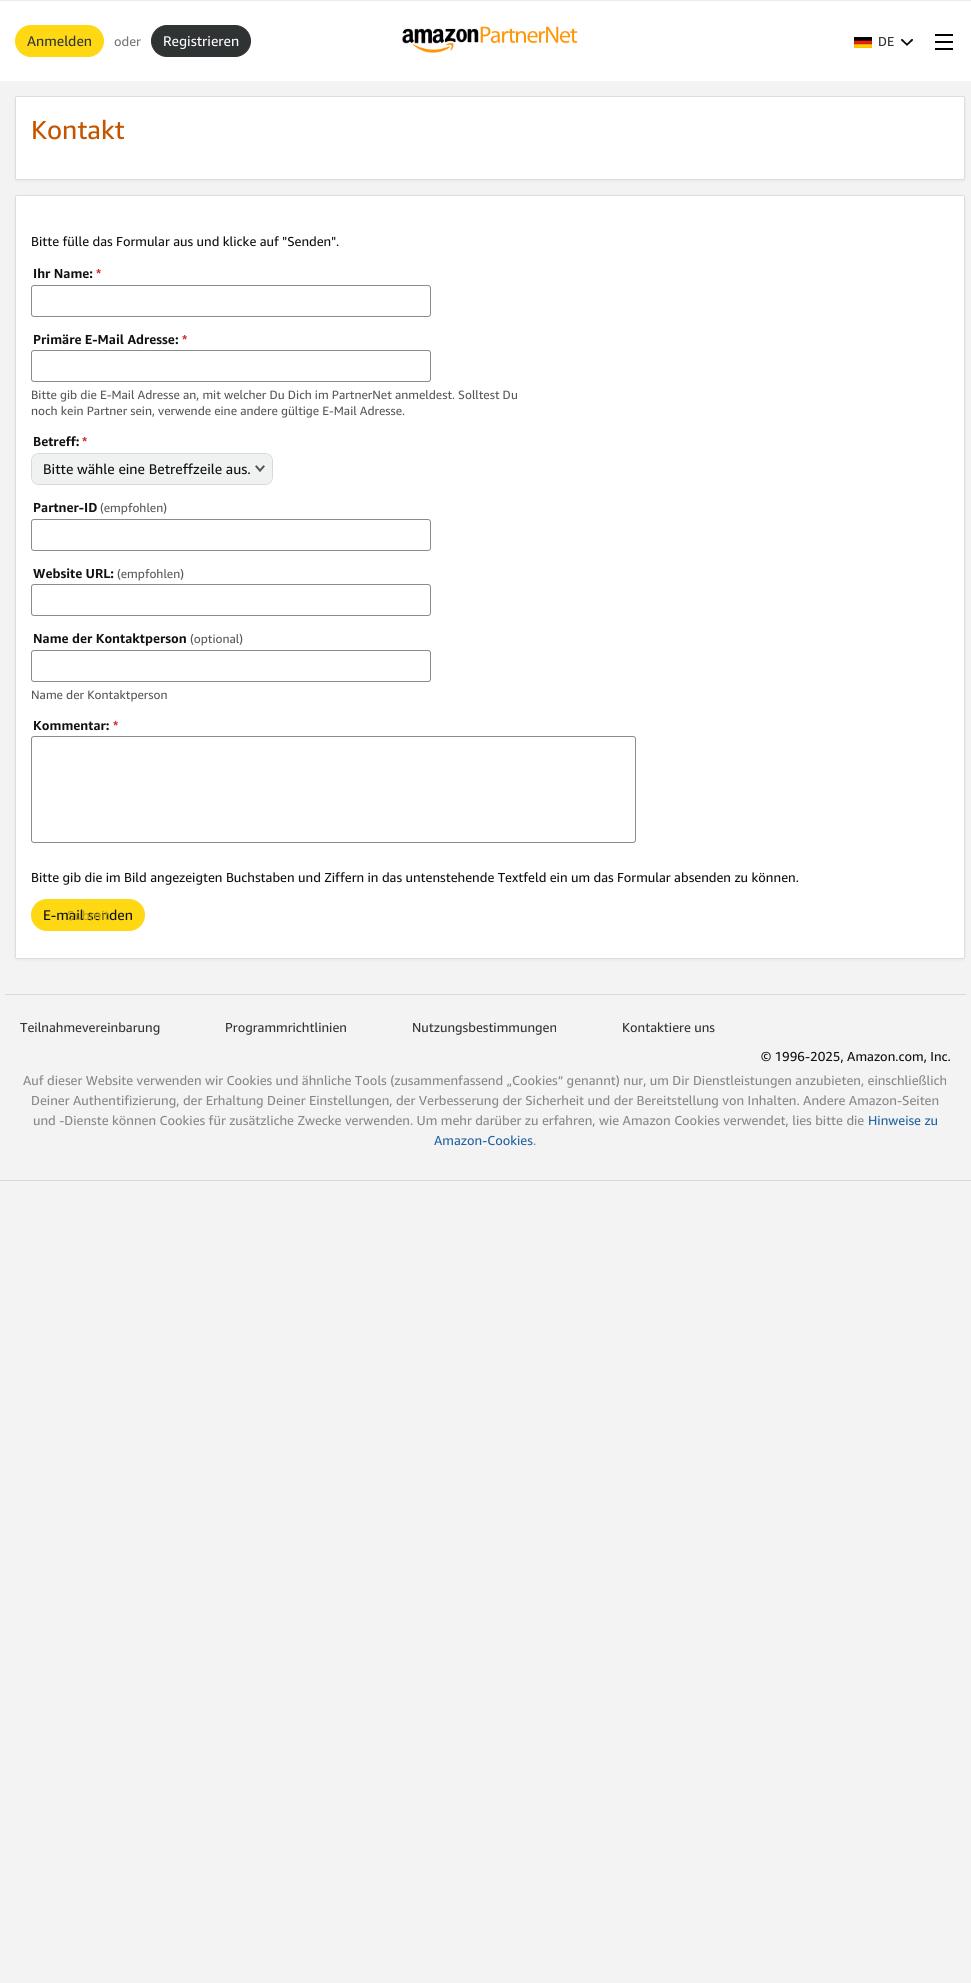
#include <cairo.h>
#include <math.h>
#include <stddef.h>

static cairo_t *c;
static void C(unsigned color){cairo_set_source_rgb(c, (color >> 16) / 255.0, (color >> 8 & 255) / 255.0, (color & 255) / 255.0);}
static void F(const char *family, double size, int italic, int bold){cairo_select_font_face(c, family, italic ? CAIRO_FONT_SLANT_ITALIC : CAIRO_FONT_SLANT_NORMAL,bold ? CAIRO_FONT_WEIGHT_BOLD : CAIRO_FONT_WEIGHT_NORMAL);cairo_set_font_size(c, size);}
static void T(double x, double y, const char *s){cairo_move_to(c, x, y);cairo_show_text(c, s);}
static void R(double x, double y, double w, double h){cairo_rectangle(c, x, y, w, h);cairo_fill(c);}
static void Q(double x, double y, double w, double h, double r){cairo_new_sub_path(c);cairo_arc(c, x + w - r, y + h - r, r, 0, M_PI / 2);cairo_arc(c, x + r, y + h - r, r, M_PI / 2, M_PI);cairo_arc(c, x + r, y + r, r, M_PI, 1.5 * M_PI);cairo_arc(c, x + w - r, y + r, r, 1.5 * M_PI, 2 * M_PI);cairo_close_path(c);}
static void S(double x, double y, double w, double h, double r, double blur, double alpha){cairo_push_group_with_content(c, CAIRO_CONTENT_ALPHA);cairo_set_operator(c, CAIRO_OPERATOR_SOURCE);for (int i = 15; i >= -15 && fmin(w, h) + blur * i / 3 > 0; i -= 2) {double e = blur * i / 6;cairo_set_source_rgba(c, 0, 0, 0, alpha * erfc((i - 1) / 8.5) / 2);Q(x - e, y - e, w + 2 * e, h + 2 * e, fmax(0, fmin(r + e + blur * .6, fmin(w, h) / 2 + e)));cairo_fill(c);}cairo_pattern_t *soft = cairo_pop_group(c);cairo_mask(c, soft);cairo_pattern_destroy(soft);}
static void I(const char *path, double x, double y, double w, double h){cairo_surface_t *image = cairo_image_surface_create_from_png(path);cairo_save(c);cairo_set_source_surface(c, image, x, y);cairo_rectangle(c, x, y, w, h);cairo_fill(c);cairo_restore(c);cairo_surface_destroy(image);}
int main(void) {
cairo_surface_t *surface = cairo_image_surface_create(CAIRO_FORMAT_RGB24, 971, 1983);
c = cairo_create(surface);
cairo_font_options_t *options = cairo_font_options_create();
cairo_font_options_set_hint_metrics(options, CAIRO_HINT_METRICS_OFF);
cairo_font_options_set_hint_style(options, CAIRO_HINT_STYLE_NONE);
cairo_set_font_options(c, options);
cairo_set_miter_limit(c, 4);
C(0xf3f3f3);
cairo_paint(c);
C(0xffffff);
R(0,1,971,80);
C(0xebebeb);
R(0,0,971,1);
C(0xffd814);
Q(15.5,25.5,88,31,15.5);
cairo_fill_preserve(c);
cairo_set_line_width(c,1);
cairo_stroke(c);
F("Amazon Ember",14,0,0);
C(0x333333);
T(27,46,"Anmelden");
F("Amazon Ember",13,0,0);
C(0x767676);
T(114,46,"oder");
C(0x303333);
Q(151.5,25.5,99,31,15.5);
cairo_fill_preserve(c);
cairo_stroke(c);
F("Amazon Ember",14,0,0);
C(0xffffff);
T(163,46,"Registrieren");
I("1.png",402,26,176,27);
I("2.png",854,37,18,11);
F("Amazon Ember",13,0,0);
C(0x333333);
T(878,46,"DE");
I("3.png",901,39,12,7);
C(0x000000);
R(935,34,18,2);
R(935,41,18,2);
R(935,48,18,2);
C(0x000000);
S(15,97,950,84,2,1.5,.05);
C(0xffffff);
Q(15.5,96.5,949,83,1.5);
cairo_fill_preserve(c);
C(0xdddddd);
cairo_stroke(c);
F("Amazon Ember",26,0,0);
C(0xc45500);
T(31,139,"Kontakt");
C(0x000000);
S(15,196,950,764,2,1.5,.05);
C(0xffffff);
Q(15.5,195.5,949,763,1.5);
cairo_fill_preserve(c);
C(0xdddddd);
cairo_stroke(c);
F("Amazon Ember",13,0,0);
C(0x0f1111);
T(31,246,"Bitte fülle das Formular aus und klicke auf \"Senden\".");
F("Amazon Ember",13,0,1);
T(33,278,"Ihr Name:");
C(0xdb2022);
T(96,278,"*");
Q(31.5,285.5,399,31,2.5);
C(0x888c8c);
cairo_stroke(c);
C(0x0f1111);
T(33,344,"Primäre E-Mail Adresse:");
C(0xdb2022);
T(182,344,"*");
Q(31.5,350.5,399,31,2.5);
C(0x888c8c);
cairo_stroke(c);
F("Amazon Ember",12,0,0);
C(0x565959);
T(31,399,"Bitte gib die E-Mail Adresse an, mit welcher Du Dich im PartnerNet anmeldest. Solltest Du");
T(31,415,"noch kein Partner sein, verwende eine andere gültige E-Mail Adresse.");
F("Amazon Ember",13,0,1);
C(0x0f1111);
T(33,446,"Betreff:");
C(0xdb2022);
T(82,446,"*");
Q(31.5,453.5,241,31,7.5);
C(0xd5d9d9);
cairo_stroke(c);
C(0xf0f2f2);
Q(32,454,240,30,7);
cairo_fill(c);
F("Amazon Ember",14,0,0);
C(0x0f1111);
T(43,474,"Bitte wähle eine Betreffzeile aus.");
I("4.png",255,465,10,7);
F("Amazon Ember",13,0,1);
T(33,512,"Partner-ID");
F("Amazon Ember",12,0,0);
C(0x565959);
T(100,512,"(empfohlen)");
Q(31.5,519.5,399,31,2.5);
C(0x888c8c);
cairo_stroke(c);
F("Amazon Ember",13,0,1);
C(0x0f1111);
T(33,578,"Website URL:");
F("Amazon Ember",12,0,0);
C(0x565959);
T(117,578,"(empfohlen)");
Q(31.5,584.5,399,31,2.5);
C(0x888c8c);
cairo_stroke(c);
F("Amazon Ember",13,0,1);
C(0x0f1111);
T(33,643,"Name der Kontaktperson");
F("Amazon Ember",12,0,0);
C(0x565959);
T(190,643,"(optional)");
Q(31.5,650.5,399,31,2.5);
C(0x888c8c);
cairo_stroke(c);
C(0x565959);
T(31,699,"Name der Kontaktperson");
F("Amazon Ember",13,0,1);
C(0x0f1111);
T(33,730,"Kommentar:");
C(0xdb2022);
T(113,730,"*");
Q(31.5,736.5,604,106,2.5);
C(0x888c8c);
cairo_stroke(c);
F("Amazon Ember",13,0,0);
C(0x0f1111);
T(31,882,"Bitte gib die im Bild angezeigten Buchstaben und Ziffern in das untenstehende Textfeld ein um das Formular absenden zu können.");
C(0xffd814);
Q(31.5,899.5,113,31,15.5);
cairo_fill_preserve(c);
cairo_stroke(c);
F("Amazon Ember",14,0,0);
C(0x0f1111);
T(43,920,"E-mail senden");
F("Amazon Ember",13,0,0);
C(0xbba013);
T(67,920,"Submit");
C(0xd9d9d9);
R(0,1180,971,1);
R(5,994,961,1);
C(0x333333);
T(20,1032,"Teilnahmevereinbarung");
T(225,1032,"Programmrichtlinien");
T(412,1032,"Nutzungsbestimmungen");
T(622,1032,"Kontaktiere uns");
C(0x0f1111);
T(761,1061,"© 1996-2025, Amazon.com, Inc.");
C(0x888888);
T(23,1085,"Auf dieser Website verwenden wir Cookies und ähnliche Tools (zusammenfassend „Cookies“ genannt) nur, um Dir Dienstleistungen anzubieten, einschließlich");
T(31,1105,"Deiner Authentifizierung, der Erhaltung Deiner Einstellungen, der Verbesserung der Sicherheit und der Bereitstellung von Inhalten. Andere Amazon-Seiten");
T(33,1125,"und -Dienste können Cookies für zusätzliche Zwecke verwenden. Um mehr darüber zu erfahren, wie Amazon Cookies verwendet, lies bitte die");
C(0x2162a1);
T(868,1125,"Hinweise zu");
T(434,1145,"Amazon-Cookies");
C(0x888888);
T(533,1145,".");
cairo_surface_write_to_png(surface, "o.png");
cairo_font_options_destroy(options);
cairo_destroy(c);
cairo_surface_destroy(surface);
return 0;
}
